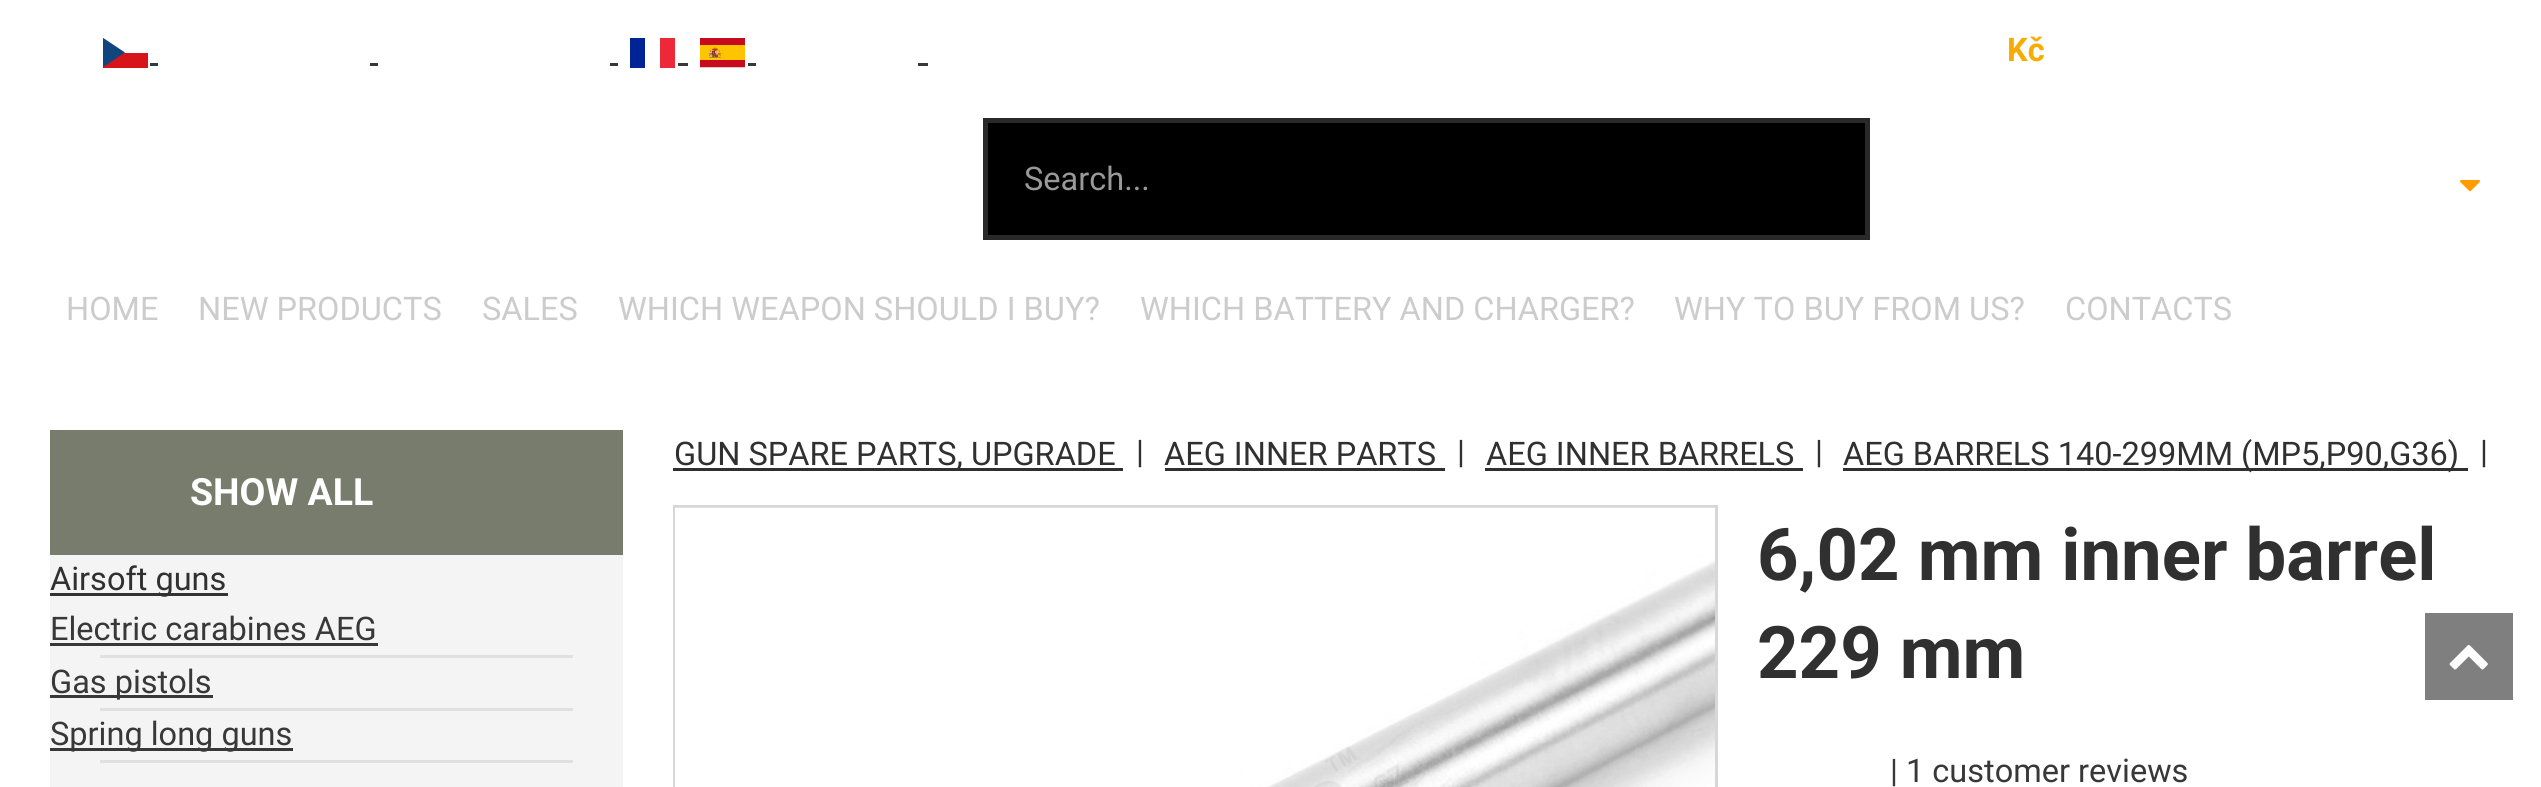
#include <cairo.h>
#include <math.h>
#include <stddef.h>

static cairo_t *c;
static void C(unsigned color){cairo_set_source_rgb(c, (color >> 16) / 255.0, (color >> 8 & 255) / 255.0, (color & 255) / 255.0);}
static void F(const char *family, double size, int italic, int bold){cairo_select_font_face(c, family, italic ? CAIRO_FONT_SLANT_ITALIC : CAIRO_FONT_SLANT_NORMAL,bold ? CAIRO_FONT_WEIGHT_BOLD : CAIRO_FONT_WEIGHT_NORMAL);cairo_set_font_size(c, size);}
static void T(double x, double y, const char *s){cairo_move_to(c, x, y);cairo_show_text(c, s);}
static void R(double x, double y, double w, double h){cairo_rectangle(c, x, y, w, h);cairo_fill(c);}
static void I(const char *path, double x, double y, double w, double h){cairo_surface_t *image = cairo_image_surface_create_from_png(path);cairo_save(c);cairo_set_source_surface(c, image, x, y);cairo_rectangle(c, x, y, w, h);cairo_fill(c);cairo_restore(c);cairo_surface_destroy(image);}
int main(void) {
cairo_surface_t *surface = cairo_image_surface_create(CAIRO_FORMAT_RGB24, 2541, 787);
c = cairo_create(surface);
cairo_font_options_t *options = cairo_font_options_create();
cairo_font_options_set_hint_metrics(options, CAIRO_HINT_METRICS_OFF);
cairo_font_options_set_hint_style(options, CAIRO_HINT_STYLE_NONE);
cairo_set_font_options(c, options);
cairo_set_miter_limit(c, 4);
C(0xffffff);
cairo_paint(c);
C(0xd7141a);
R(103,53,45,15);
cairo_save(c);
cairo_rectangle(c,103,38,45,30);
cairo_clip(c);
C(0x11457e);
cairo_new_path(c);
cairo_move_to(c,125,52.5);
cairo_line_to(c,102.5,37.5);
cairo_line_to(c,102.5,67.5);
cairo_close_path(c);
cairo_fill(c);
cairo_restore(c);
C(0x002395);
R(630,38,15,30);
C(0xed2939);
R(660,38,15,30);
I("1.png",700,38,45,30);
C(0x383838);
R(150,63,8,3);
R(370,63,8,3);
R(610,63,8,3);
R(678,63,10,3);
R(748,63,8,3);
R(918,63,10,3);
F("Roboto",32.5,0,1);
C(0xf6ac00);
T(2007,61,"Kč");
cairo_rectangle(c,985.5,120.5,882,117);
C(0x292929);
cairo_set_line_width(c,5);
cairo_stroke(c);
C(0x000000);
R(988,123,877,112);
F("Roboto",32.5,0,0);
C(0x999999);
T(1024,190,"Search...");
I("2.png",2460,180,20,12);
C(0xcccccc);
T(66,320,"HOME");
T(198,320,"NEW PRODUCTS");
T(482,320,"SALES");
T(618,320,"WHICH WEAPON SHOULD I BUY?");
T(1140,320,"WHICH BATTERY AND CHARGER?");
T(1674,320,"WHY TO BUY FROM US?");
T(2065,320,"CONTACTS");
C(0x787c6c);
R(50,430,573,125);
F("Roboto",37.5,0,1);
C(0xffffff);
T(190,505,"SHOW ALL");
C(0xf4f4f4);
R(50,555,573,232);
C(0x333333);
R(50,593,178,3);
F("Roboto",32.5,0,0);
C(0x303030);
T(50,590,"Airsoft guns");
C(0x383838);
T(50,640,"Electric carabines AEG");
R(50,643,328,3);
C(0xe0e0e0);
R(100,655,473,3);
C(0x383838);
R(50,695,163,3);
T(50,693,"Gas pistols");
C(0xe0e0e0);
R(100,708,473,3);
C(0x383838);
R(50,748,243,3);
T(50,745,"Spring long guns");
C(0xe0e0e0);
R(100,760,473,3);
C(0x2f2f2f);
R(673,468,450,3);
C(0x303030);
T(674,465,"GUN SPARE PARTS, UPGRADE");
T(1136,463,"|");
T(1164,465,"AEG INNER PARTS");
C(0x2f2f2f);
R(1165,468,280,3);
C(0x303030);
T(1457,463,"|");
T(1486,465,"AEG INNER BARRELS");
C(0x2f2f2f);
R(1485,468,318,3);
C(0x303030);
T(1815,463,"|");
C(0x2f2f2f);
R(1843,468,625,3);
C(0x303030);
T(1843,465,"AEG BARRELS 140-299MM (MP5,P90,G36)");
T(2480,463,"|");
cairo_rectangle(c,674.5,506.5,1042,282);
C(0xd7d7d7);
cairo_set_line_width(c,3);
cairo_stroke(c);
I("3.png",675,507,1040,280);
F("Roboto",72.5,0,1);
C(0x303030);
T(1757,580,"6,02 mm inner barrel");
T(1757,678,"229 mm");
F("Roboto",32.5,0,0);
C(0x383838);
T(1890,782,"| 1 customer reviews");
C(0x7f7f7f);
R(2425,613,88,87);
I("4.png",2449,645,39,25);
cairo_surface_write_to_png(surface, "o.png");
cairo_font_options_destroy(options);
cairo_destroy(c);
cairo_surface_destroy(surface);
return 0;
}
